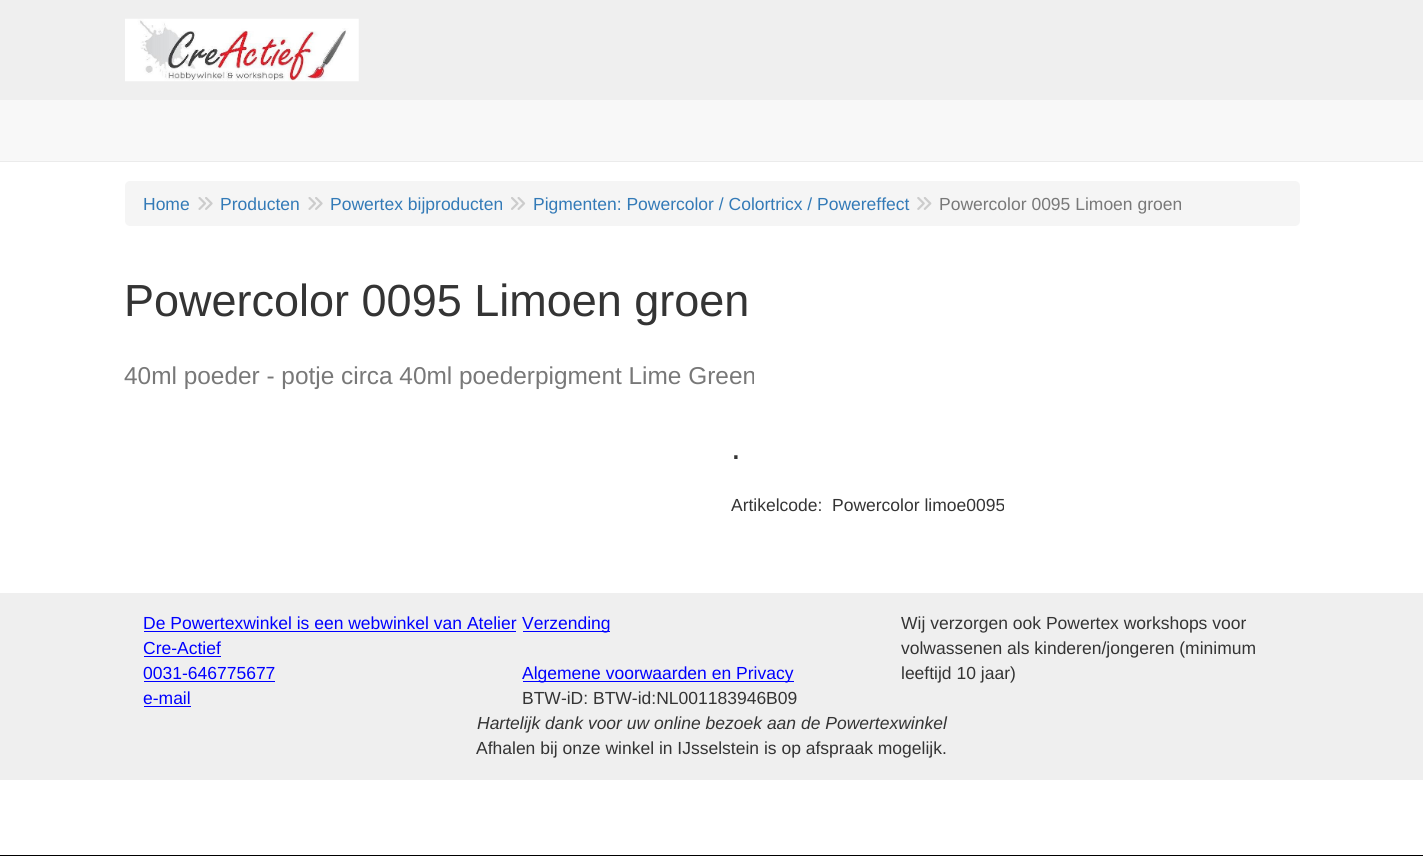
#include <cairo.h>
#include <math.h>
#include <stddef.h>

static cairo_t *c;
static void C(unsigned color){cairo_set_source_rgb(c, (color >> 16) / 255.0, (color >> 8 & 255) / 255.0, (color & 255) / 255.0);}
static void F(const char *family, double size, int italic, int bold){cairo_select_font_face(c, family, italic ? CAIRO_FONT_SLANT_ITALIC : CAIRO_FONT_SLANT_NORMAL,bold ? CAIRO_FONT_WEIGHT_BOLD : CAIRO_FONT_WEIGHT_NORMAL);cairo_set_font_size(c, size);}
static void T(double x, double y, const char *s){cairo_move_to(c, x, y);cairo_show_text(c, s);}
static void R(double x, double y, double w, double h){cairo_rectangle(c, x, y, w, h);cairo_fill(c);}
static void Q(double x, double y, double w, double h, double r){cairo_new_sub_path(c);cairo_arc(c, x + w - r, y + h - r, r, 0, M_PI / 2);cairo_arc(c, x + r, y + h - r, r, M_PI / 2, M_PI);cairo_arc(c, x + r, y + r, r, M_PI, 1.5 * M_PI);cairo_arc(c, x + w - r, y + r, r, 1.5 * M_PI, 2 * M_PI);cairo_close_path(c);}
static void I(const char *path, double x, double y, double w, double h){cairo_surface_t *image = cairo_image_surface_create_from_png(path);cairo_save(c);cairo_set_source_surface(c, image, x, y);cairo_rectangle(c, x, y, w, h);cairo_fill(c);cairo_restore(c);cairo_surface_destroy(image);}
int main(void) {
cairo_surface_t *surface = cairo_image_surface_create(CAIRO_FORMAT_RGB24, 1423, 856);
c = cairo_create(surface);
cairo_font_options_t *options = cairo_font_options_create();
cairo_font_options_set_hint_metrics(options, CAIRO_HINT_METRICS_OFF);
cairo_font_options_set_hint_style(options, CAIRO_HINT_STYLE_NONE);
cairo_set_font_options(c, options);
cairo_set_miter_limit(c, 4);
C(0xffffff);
cairo_paint(c);
C(0xefefef);
R(0,0,1423,100);
I("1.png",125,18,234,64);
C(0xf8f8f8);
R(0,100,1423,61);
C(0xebebeb);
R(0,161,1423,1);
C(0xf5f5f5);
Q(125,181,1175,45,5);
cairo_fill(c);
F("Liberation Sans",17.5,0,0);
C(0x337ab7);
T(143,210,"Home");
I("2.png",198,197,15,13);
T(220,210,"Producten");
I("2.png",308,197,15,13);
T(330,210,"Powertex bijproducten");
I("3.png",511,197,15,13);
T(533,210,"Pigmenten: Powercolor / Colortricx / Powereffect");
I("4.png",917,197,15,13);
C(0x787878);
T(939,210,"Powercolor 0095 Limoen groen");
F("Liberation Sans",45,0,0);
C(0x343434);
T(124,316,"Powercolor 0095 Limoen groen");
F("Liberation Sans",24.4,0,0);
C(0x787878);
T(124,384,"40ml poeder - potje circa 40ml poederpigment Lime Green");
F("Liberation Sans",35,0,0);
C(0x343434);
T(731,459,".");
F("Liberation Sans",17.5,0,0);
T(731,511,"Artikelcode:");
T(832,511,"Powercolor limoe0095");
C(0xefefef);
R(0,593,1423,187);
C(0x0000ff);
T(143,629,"De Powertexwinkel is een webwinkel van Atelier");
R(144,631,372,1);
T(143,654,"Cre-Actief");
R(144,656,77,1);
T(143,679,"0031-646775677");
R(144,681,131,1);
T(143,704,"e-mail");
R(144,706,47,1);
R(523,631,87,1);
T(522,629,"Verzending");
R(523,681,271,1);
T(522,679,"Algemene voorwaarden en Privacy");
C(0x343434);
T(522,704,"BTW-iD: BTW-id:NL001183946B09");
T(901,629,"Wij verzorgen ook Powertex workshops voor");
T(901,654,"volwassenen als kinderen/jongeren (minimum");
T(901,679,"leeftijd 10 jaar)");
F("Liberation Sans",17.5,1,0);
T(477,729,"Hartelijk dank voor uw online bezoek aan de Powertexwinkel");
F("Liberation Sans",17.5,0,0);
T(476,754,"Afhalen bij onze winkel in IJsselstein is op afspraak mogelijk.");
C(0x000000);
R(0,855,1423,1);
cairo_surface_write_to_png(surface, "o.png");
cairo_font_options_destroy(options);
cairo_destroy(c);
cairo_surface_destroy(surface);
return 0;
}
